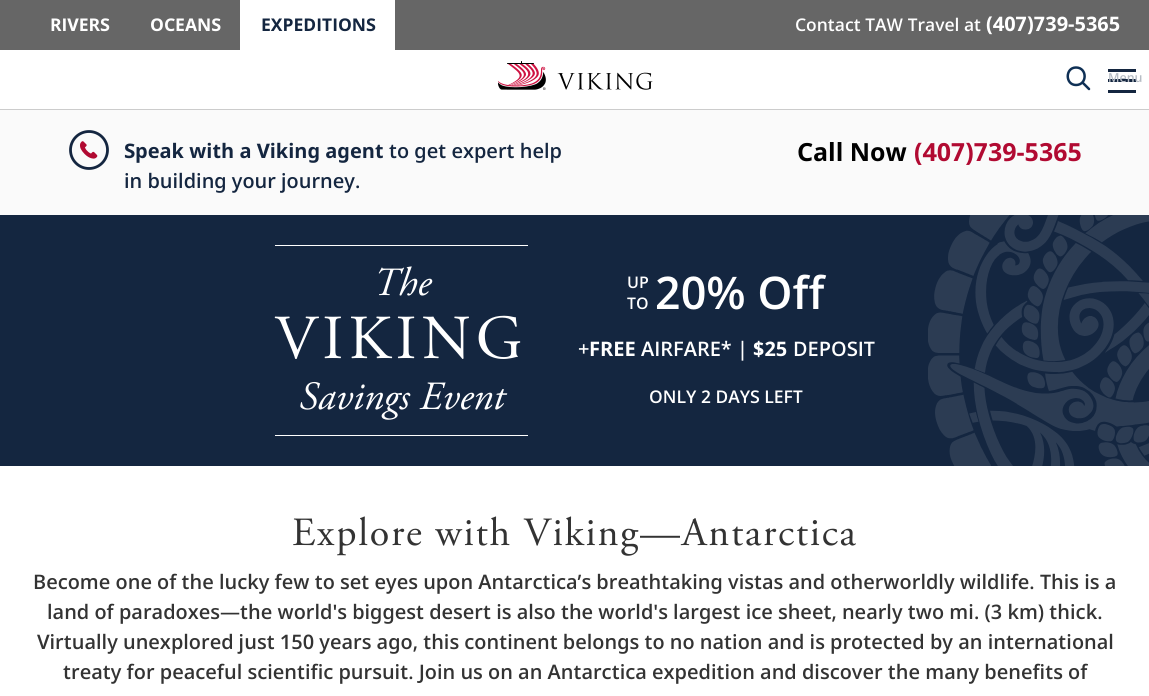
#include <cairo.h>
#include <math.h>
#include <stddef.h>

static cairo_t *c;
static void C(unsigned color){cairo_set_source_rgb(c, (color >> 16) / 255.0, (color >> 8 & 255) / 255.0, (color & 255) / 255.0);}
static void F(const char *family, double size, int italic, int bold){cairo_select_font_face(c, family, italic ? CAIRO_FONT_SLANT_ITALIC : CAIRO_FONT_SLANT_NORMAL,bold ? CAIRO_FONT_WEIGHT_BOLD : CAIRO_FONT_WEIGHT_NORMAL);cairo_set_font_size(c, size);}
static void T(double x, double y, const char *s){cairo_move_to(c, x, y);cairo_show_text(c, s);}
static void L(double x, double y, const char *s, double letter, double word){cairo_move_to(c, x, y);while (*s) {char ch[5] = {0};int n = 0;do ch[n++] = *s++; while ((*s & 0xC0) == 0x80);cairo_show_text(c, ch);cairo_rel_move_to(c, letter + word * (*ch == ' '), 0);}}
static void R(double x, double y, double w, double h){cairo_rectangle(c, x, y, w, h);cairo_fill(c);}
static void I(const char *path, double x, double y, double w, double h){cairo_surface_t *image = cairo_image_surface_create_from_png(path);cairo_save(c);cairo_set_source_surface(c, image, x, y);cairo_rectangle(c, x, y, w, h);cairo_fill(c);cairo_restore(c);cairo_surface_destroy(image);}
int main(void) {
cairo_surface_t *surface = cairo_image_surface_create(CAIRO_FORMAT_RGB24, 1149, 696);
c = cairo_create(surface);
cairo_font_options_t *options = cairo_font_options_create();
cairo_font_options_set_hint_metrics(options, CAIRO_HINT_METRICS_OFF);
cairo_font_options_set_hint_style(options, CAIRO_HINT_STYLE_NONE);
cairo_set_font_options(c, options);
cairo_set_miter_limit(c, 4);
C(0xffffff);
cairo_paint(c);
C(0x666666);
R(0,0,1149,50);
F("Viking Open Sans",17.5,0,1);
C(0xffffff);
T(50,31,"RIVERS");
T(150,31,"OCEANS");
R(240,0,155,50);
C(0x142640);
T(261,31,"EXPEDITIONS");
F("Viking Open Sans SemiBold",17.5,0,0);
C(0xffffff);
T(795,31,"Contact TAW Travel at");
F("Viking Open Sans",20,0,1);
T(986,31,"(407)739-5365");
C(0xcccccc);
R(0,109,1149,1);
I("1.png",498,61,155,29);
cairo_new_path(c);
cairo_move_to(c,1076,67.5);
cairo_curve_to(c,1065,67.5,1065,85,1076,85);
cairo_curve_to(c,1087.5,85,1087.5,67.5,1076,67.5);
cairo_close_path(c);
cairo_move_to(c,1089,89);
cairo_line_to(c,1083.5,83.5);
C(0x0f3055);
cairo_set_line_width(c,2.5);
cairo_set_line_cap(c,CAIRO_LINE_CAP_ROUND);
cairo_set_line_join(c,CAIRO_LINE_JOIN_ROUND);
cairo_stroke(c);
C(0x142640);
R(1108,69,28,3);
R(1108,79,28,3);
F("Viking Open Sans SemiBold",12.5,0,0);
C(0xb6bcc4);
T(1108,82,"Menu");
C(0x142640);
R(1108,90,28,3);
C(0xfafafa);
R(0,110,1149,105);
cairo_new_path(c);
cairo_arc(c,89,150,18.5,0,2 * M_PI);
C(0x142640);
cairo_set_line_width(c,2.8);
cairo_set_line_cap(c,CAIRO_LINE_CAP_BUTT);
cairo_set_line_join(c,CAIRO_LINE_JOIN_MITER);
cairo_stroke(c);
I("2.png",80,141,18,18);
F("Viking Open Sans",20,0,1);
T(124,158,"Speak with a Viking agent");
F("Viking Open Sans SemiBold",20,0,0);
T(389,158,"to get expert help");
T(124,188,"in building your journey.");
F("Viking Open Sans",25,0,1);
C(0x000000);
T(797,161,"Call Now");
C(0xb10a32);
T(914,161,"(407)739-5365");
C(0x142640);
R(0,215,1149,251);
C(0xffffff);
R(275,245,253,1);
R(275,435,253,1);
F("Adobe Garamond",40,1,0);
T(373,295,"The");
F("Adobe Garamond",62.5,0,0);
L(275,358,"VIKING",5,0);
F("Adobe Garamond",40,1,0);
T(299,409,"Savings Event");
F("Viking Open Sans SemiBold",16,0,0);
T(627,288,"UP");
T(627,309,"TO");
F("Viking Open Sans SemiBold",45,0,0);
T(655,309,"20% Off");
F("Viking Open Sans SemiBold",20,0,0);
T(578,356,"+");
F("Viking Open Sans",20,0,1);
T(589,356,"FREE");
F("Viking Open Sans SemiBold",20,0,0);
T(641,356,"AIRFARE* |");
F("Viking Open Sans",20,0,1);
T(753,356,"$25");
F("Viking Open Sans SemiBold",20,0,0);
T(793,356,"DEPOSIT");
F("Viking Open Sans SemiBold",17.5,0,0);
T(649,403,"ONLY 2 DAYS LEFT");
I("3.png",928,215,221,251);
F("Adobe Garamond",40,0,0);
C(0x333333);
L(292,545,"Explore with Viking—Antarctica",1.75,0);
F("Viking Open Sans SemiBold",20,0,0);
T(33,589,"Become one of the lucky few to set eyes upon Antarctica’s breathtaking vistas and otherworldly wildlife. This is a");
T(47,619,"land of paradoxes—the world's biggest desert is also the world's largest ice sheet, nearly two mi. (3 km) thick.");
T(37,649,"Virtually unexplored just 150 years ago, this continent belongs to no nation and is protected by an international");
T(63,679,"treaty for peaceful scientific pursuit. Join us on an Antarctica expedition and discover the many benefits of");
cairo_surface_write_to_png(surface, "o.png");
cairo_font_options_destroy(options);
cairo_destroy(c);
cairo_surface_destroy(surface);
return 0;
}
